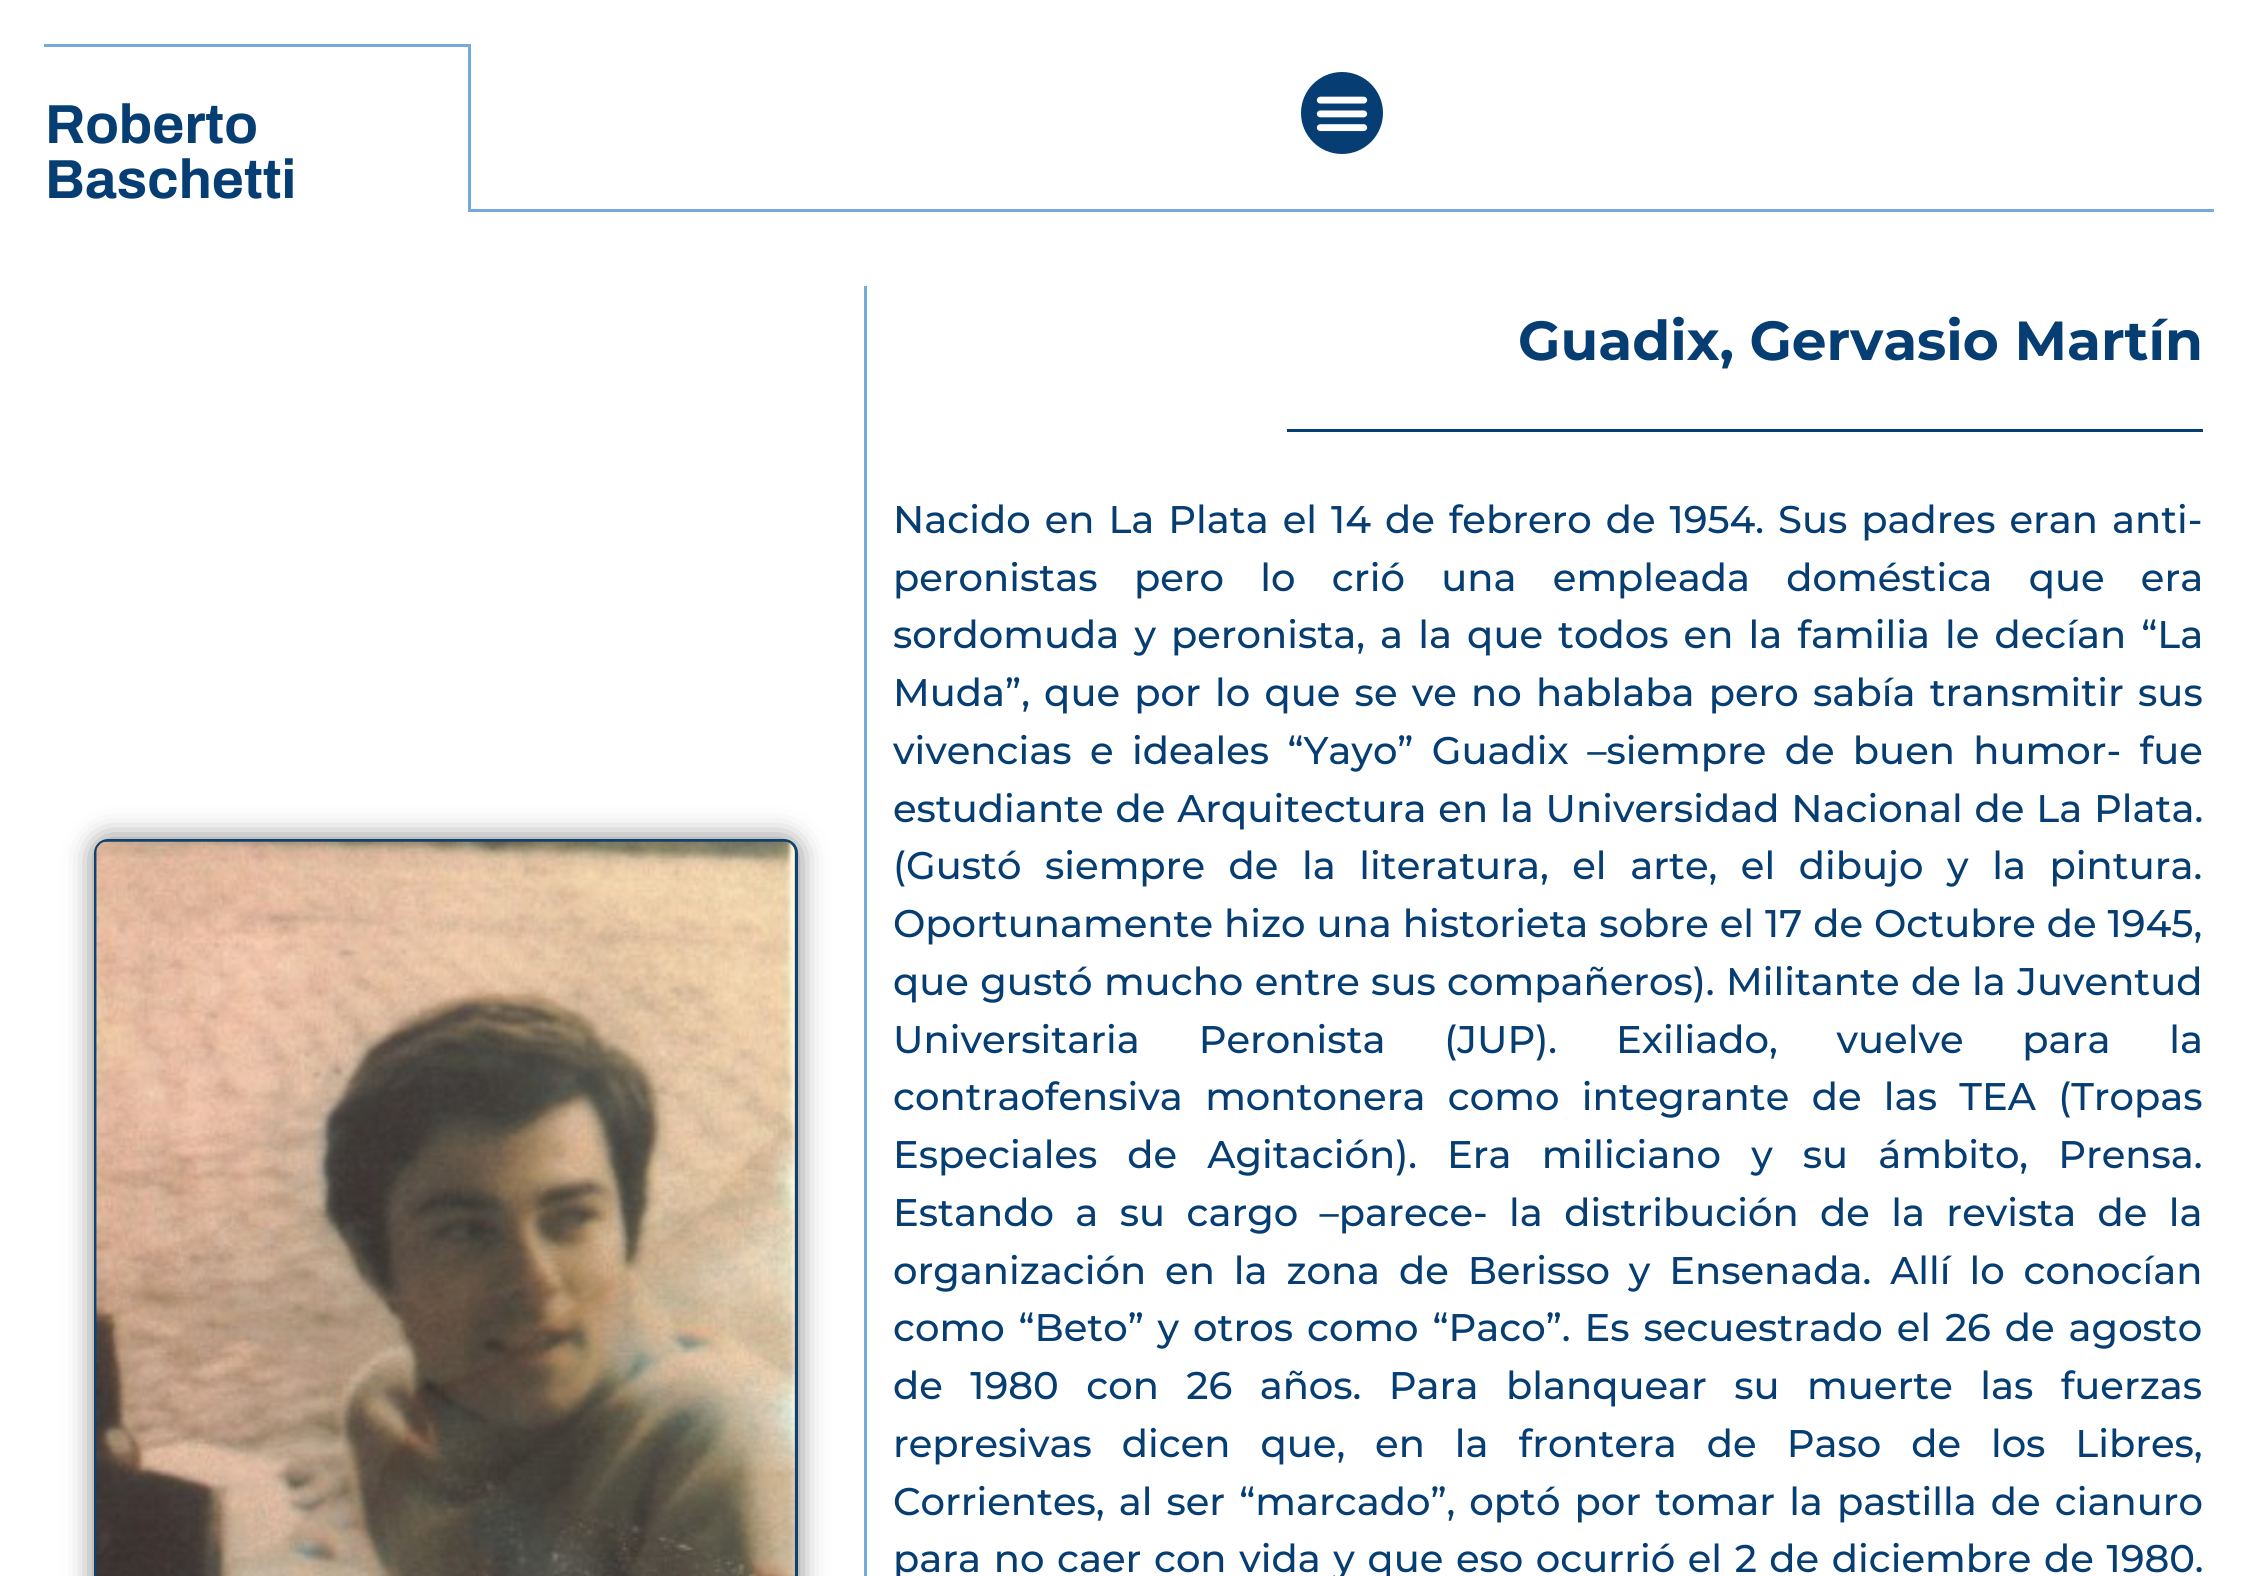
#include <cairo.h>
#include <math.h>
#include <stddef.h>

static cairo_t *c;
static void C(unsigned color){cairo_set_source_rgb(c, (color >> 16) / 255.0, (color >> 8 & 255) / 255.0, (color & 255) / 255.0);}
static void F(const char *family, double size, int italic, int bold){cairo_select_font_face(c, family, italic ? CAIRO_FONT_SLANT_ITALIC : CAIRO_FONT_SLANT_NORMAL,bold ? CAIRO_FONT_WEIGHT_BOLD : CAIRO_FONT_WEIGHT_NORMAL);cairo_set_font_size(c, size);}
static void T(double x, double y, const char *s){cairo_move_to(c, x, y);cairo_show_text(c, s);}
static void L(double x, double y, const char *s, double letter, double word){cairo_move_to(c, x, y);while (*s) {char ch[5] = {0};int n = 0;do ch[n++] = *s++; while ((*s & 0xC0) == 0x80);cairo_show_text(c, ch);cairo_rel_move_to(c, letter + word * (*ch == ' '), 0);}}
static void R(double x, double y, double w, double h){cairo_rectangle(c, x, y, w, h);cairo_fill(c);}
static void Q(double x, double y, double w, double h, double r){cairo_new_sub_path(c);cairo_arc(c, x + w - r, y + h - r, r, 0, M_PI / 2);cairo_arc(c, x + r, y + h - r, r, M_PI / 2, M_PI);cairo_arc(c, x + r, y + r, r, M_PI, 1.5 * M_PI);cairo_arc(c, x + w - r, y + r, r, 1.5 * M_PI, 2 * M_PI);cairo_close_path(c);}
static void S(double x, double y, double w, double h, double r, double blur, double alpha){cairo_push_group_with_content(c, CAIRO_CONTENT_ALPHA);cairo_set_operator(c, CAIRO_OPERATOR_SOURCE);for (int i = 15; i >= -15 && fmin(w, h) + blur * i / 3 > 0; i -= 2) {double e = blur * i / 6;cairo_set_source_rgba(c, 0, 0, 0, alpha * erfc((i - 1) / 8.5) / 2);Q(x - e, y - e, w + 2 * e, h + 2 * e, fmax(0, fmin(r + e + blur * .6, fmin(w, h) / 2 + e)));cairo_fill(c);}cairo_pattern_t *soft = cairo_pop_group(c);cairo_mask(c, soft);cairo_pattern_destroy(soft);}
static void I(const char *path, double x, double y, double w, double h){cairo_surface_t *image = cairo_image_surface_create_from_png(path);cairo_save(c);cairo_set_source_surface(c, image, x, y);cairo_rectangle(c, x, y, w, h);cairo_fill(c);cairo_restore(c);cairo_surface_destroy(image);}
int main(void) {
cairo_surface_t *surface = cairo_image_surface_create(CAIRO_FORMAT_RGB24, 2256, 1576);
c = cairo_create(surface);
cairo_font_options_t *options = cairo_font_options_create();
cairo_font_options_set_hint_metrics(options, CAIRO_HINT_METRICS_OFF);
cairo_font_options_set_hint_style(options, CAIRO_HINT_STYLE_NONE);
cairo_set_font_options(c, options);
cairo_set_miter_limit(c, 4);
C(0xffffff);
cairo_paint(c);
C(0x75aadd);
R(44,44,426,3);
R(468,44,3,168);
F("Archivo",55,0,1);
C(0x063e73);
T(45,143,"Roberto");
T(45,198,"Baschetti");
C(0x75aadd);
R(470,209,1744,3);
C(0x063e73);
cairo_new_path(c);
cairo_arc(c,1342,113,41,0,2 * M_PI);
cairo_fill(c);
I("1.png",1316,96,52,36);
C(0x75aadd);
R(864,286,3,1290);
C(0x000000);
S(94,839,704,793,14,14,.5);
Q(95.5,840.5,701,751,12.5);
C(0x11416e);
cairo_set_line_width(c,3);
cairo_stroke(c);
I("2.png",96,841,699,735);
F("Montserrat",55,0,1);
C(0x063e73);
T(1518,360,"Guadix, Gervasio Martín");
R(1287,429,916,3);
F("Montserrat Medium",38.5,0,0);
L(893,533,"Nacido en La Plata el 14 de febrero de 1954. Sus padres eran anti-",0,3.6);
L(893,591,"peronistas pero lo crió una empleada doméstica que era",0,26);
L(893,648,"sordomuda y peronista, a la que todos en la familia le decían “La",0,4.75);
L(893,706,"Muda”, que por lo que se ve no hablaba pero sabía transmitir sus",0,3.9);
L(893,764,"vivencias e ideales “Yayo” Guadix –siempre de buen humor- fue",0,8);
L(893,822,"estudiante de Arquitectura en la Universidad Nacional de La Plata.",0,1.5);
L(893,879,"(Gustó siempre de la literatura, el arte, el dibujo y la pintura.",0,13.25);
L(893,937,"Oportunamente hizo una historieta sobre el 17 de Octubre de 1945,",0,.6);
L(893,995,"que gustó mucho entre sus compañeros). Militante de la Juventud",0,1);
L(893,1053,"Universitaria Peronista (JUP). Exiliado, vuelve para la",0,48.5);
L(893,1110,"contraofensiva montonera como integrante de las TEA (Tropas",0,12);
L(893,1168,"Especiales de Agitación). Era miliciano y su ámbito, Prensa.",0,19.75);
L(893,1226,"Estando a su cargo –parece- la distribución de la revista de la",0,11);
L(893,1284,"organización en la zona de Berisso y Ensenada. Allí lo conocían",0,8.5);
L(893,1341,"como “Beto” y otros como “Paco”. Es secuestrado el 26 de agosto",0,3.6);
L(893,1399,"de 1980 con 26 años. Para blanquear su muerte las fuerzas",0,17.1);
L(893,1457,"represivas dicen que, en la frontera de Paso de los Libres,",0,19.6);
L(893,1515,"Corrientes, al ser “marcado”, optó por tomar la pastilla de cianuro",0,3.75);
L(893,1572,"para no caer con vida y que eso ocurrió el 2 de diciembre de 1980.",0,2.25);
cairo_surface_write_to_png(surface, "o.png");
cairo_font_options_destroy(options);
cairo_destroy(c);
cairo_surface_destroy(surface);
return 0;
}
